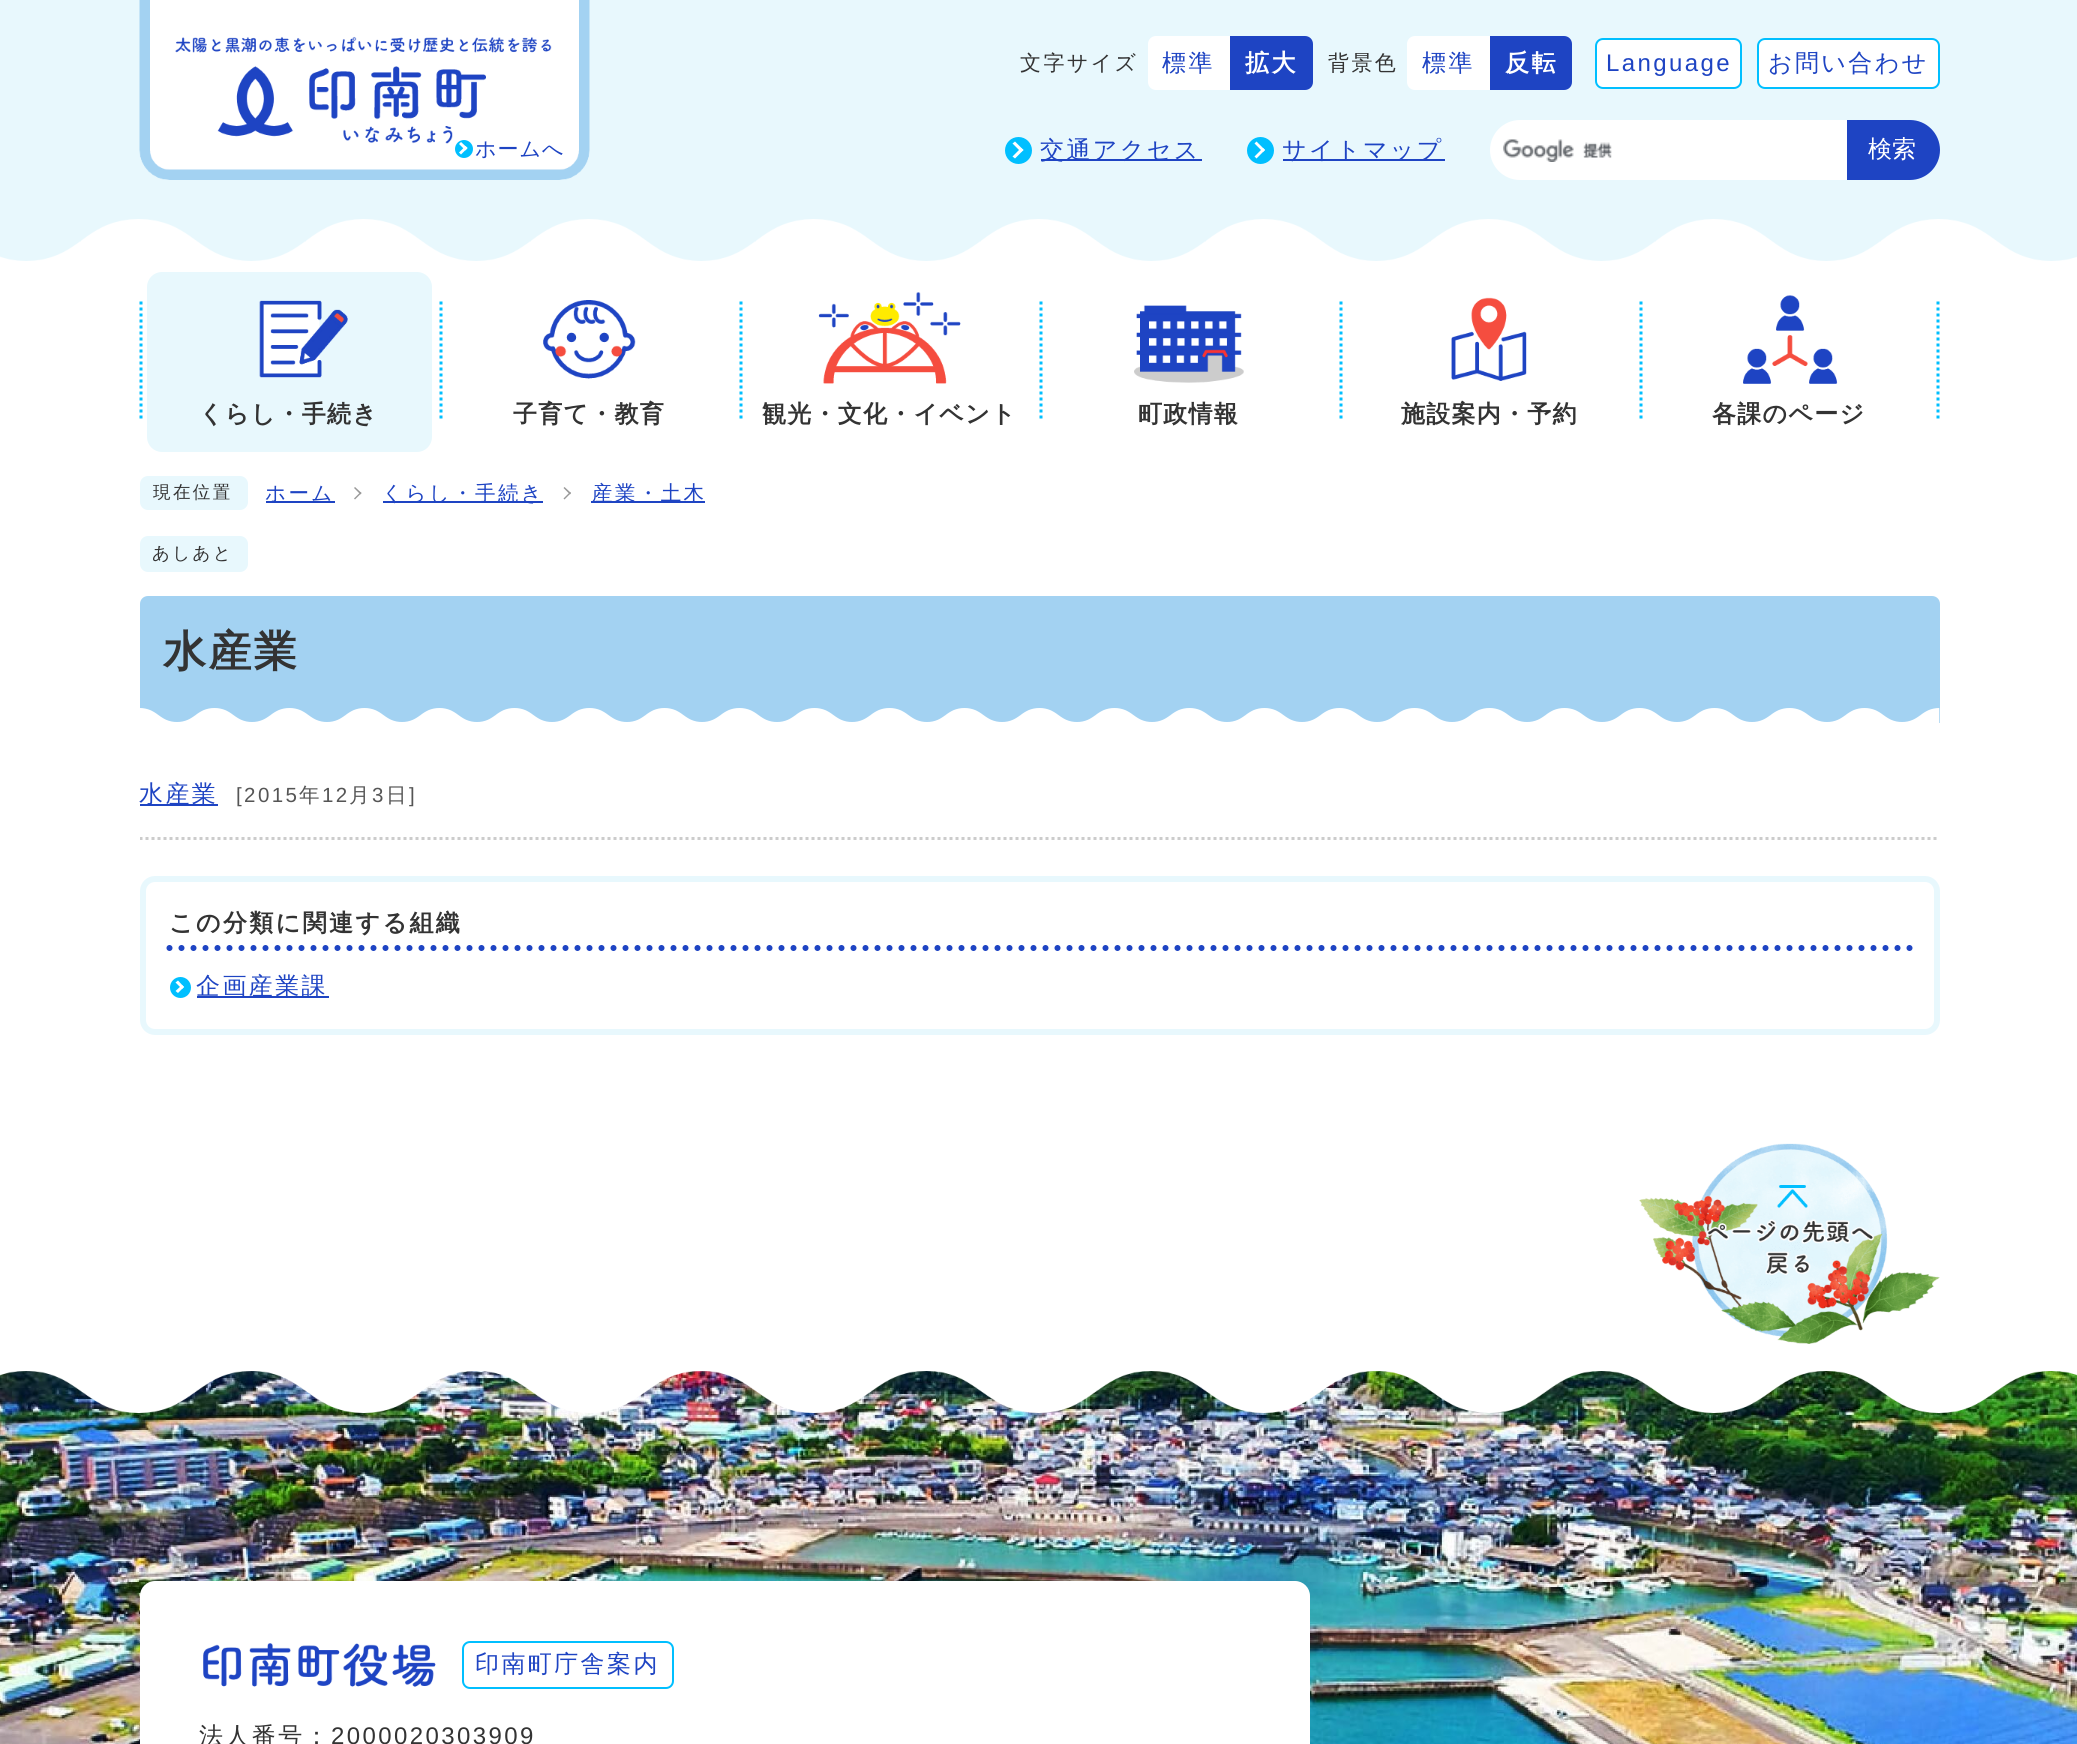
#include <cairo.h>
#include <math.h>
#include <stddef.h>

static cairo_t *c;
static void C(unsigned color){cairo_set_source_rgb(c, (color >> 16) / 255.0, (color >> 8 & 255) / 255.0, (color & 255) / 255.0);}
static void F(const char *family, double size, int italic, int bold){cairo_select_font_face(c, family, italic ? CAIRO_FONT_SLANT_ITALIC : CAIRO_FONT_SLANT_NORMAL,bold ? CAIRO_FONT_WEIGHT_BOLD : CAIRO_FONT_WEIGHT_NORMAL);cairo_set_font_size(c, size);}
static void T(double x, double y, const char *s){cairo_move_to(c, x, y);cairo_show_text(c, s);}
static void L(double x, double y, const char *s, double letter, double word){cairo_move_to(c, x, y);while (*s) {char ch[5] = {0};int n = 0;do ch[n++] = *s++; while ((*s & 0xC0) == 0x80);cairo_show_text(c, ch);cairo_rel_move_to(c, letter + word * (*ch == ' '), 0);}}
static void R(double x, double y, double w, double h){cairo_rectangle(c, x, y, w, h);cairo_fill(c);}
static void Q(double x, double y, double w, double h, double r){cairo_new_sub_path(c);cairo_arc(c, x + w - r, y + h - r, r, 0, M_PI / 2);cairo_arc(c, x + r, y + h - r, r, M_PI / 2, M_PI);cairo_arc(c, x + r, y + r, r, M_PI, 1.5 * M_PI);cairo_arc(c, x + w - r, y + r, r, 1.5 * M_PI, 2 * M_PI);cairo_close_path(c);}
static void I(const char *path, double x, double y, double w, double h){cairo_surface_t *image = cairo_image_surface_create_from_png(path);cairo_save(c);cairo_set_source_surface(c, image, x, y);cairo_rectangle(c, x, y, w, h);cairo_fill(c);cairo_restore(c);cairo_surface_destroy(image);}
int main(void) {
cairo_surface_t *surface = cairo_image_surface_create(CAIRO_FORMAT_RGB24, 2077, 1744);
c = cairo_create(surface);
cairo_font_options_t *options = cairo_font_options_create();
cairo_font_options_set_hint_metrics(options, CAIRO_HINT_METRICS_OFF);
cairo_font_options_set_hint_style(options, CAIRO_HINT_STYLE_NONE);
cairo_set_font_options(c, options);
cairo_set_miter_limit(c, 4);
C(0xffffff);
cairo_paint(c);
C(0xe8f8fd);
R(0,0,2077,261);
I("1.png",0,219,2077,45);
I("2.png",139,0,451,180);
C(0x00bfff);
cairo_arc(c,464,149,9,0,2 * M_PI);
cairo_fill(c);
F("WenQuanYi Zen Hei Medium",21,0,0);
C(0x1e44c3);
L(475,156,"ホームへ",1,0);
C(0xffffff);
cairo_new_path(c);
cairo_move_to(c,461,142);
cairo_line_to(c,467.5,148);
cairo_line_to(c,465.5,150.5);
cairo_line_to(c,459,144);
cairo_close_path(c);
cairo_fill(c);
cairo_new_path(c);
cairo_move_to(c,465.5,146);
cairo_line_to(c,467.5,148);
cairo_line_to(c,461,154.5);
cairo_line_to(c,459,152.5);
cairo_close_path(c);
cairo_fill(c);
C(0x333333);
L(1020,70,"文字サイズ",2.4,0);
C(0xffffff);
cairo_new_path(c);
cairo_move_to(c,1156,36);
cairo_line_to(c,1230,36);
cairo_line_to(c,1230,90);
cairo_line_to(c,1156,90);
cairo_curve_to(c,1151.5,90,1148,86.5,1148,82);
cairo_line_to(c,1148,44);
cairo_curve_to(c,1148,39.5,1151.5,36,1156,36);
cairo_close_path(c);
cairo_fill(c);
F("WenQuanYi Zen Hei Medium",24,0,0);
C(0x1e44c3);
L(1162,71,"標準",2.4,0);
cairo_new_path(c);
cairo_move_to(c,1230,36);
cairo_line_to(c,1305,36);
cairo_curve_to(c,1309.5,36,1313,39.5,1313,44);
cairo_line_to(c,1313,82);
cairo_curve_to(c,1313,86.5,1309.5,90,1305,90);
cairo_line_to(c,1230,90);
cairo_close_path(c);
cairo_fill(c);
F("WenQuanYi Zen Hei",24,0,1);
C(0xffffff);
L(1245,71,"拡大",2.4,0);
F("WenQuanYi Zen Hei Medium",21,0,0);
C(0x333333);
L(1328,70,"背景色",2.4,0);
C(0xffffff);
cairo_new_path(c);
cairo_move_to(c,1415,36);
cairo_line_to(c,1490,36);
cairo_line_to(c,1490,90);
cairo_line_to(c,1415,90);
cairo_curve_to(c,1410.5,90,1407,86.5,1407,82);
cairo_line_to(c,1407,44);
cairo_curve_to(c,1407,39.5,1410.5,36,1415,36);
cairo_close_path(c);
cairo_fill(c);
F("WenQuanYi Zen Hei Medium",24,0,0);
C(0x1e44c3);
L(1422,71,"標準",2.4,0);
cairo_new_path(c);
cairo_move_to(c,1490,36);
cairo_line_to(c,1564,36);
cairo_curve_to(c,1568.5,36,1572,39.5,1572,44);
cairo_line_to(c,1572,82);
cairo_curve_to(c,1572,86.5,1568.5,90,1564,90);
cairo_line_to(c,1490,90);
cairo_close_path(c);
cairo_fill(c);
F("WenQuanYi Zen Hei",24,0,1);
C(0xffffff);
L(1505,71,"反転",2.4,0);
Q(1596,39,145,49,7);
cairo_fill_preserve(c);
C(0x00bfff);
cairo_stroke(c);
F("Liberation Sans",24,0,0);
C(0x1e44c3);
L(1606,71,"Language",2.4,0);
C(0xffffff);
Q(1758,39,181,49,7);
cairo_fill_preserve(c);
C(0x00bfff);
cairo_stroke(c);
F("WenQuanYi Zen Hei Medium",24,0,0);
C(0x1e44c3);
L(1768,71,"お問い合わせ",2.4,0);
C(0x00bfff);
cairo_new_path(c);
cairo_arc(c,1018.5,150.5,13.5,0,2 * M_PI);
cairo_fill(c);
C(0x1e44c3);
R(1041,159,161,2);
L(1040,158,"交通アクセス",2.4,0);
C(0xffffff);
cairo_new_path(c);
cairo_move_to(c,1015,141.5);
cairo_line_to(c,1023.5,150);
cairo_line_to(c,1021,152);
cairo_line_to(c,1012.5,143.5);
cairo_close_path(c);
cairo_fill(c);
cairo_new_path(c);
cairo_move_to(c,1021,148);
cairo_line_to(c,1023.5,150);
cairo_line_to(c,1015,158.5);
cairo_line_to(c,1012.5,156.5);
cairo_close_path(c);
cairo_fill(c);
C(0x00bfff);
cairo_arc(c,1260.5,150.5,13.5,0,2 * M_PI);
cairo_fill(c);
C(0x1e44c3);
R(1283,159,162,2);
L(1282,158,"サイトマップ",2.4,0);
C(0xffffff);
cairo_new_path(c);
cairo_move_to(c,1256.5,141.5);
cairo_line_to(c,1265,150);
cairo_line_to(c,1263,152);
cairo_line_to(c,1254.5,143.5);
cairo_close_path(c);
cairo_fill(c);
cairo_new_path(c);
cairo_move_to(c,1263,148);
cairo_line_to(c,1265,150);
cairo_line_to(c,1256.5,158.5);
cairo_line_to(c,1254.5,156.5);
cairo_close_path(c);
cairo_fill(c);
cairo_new_path(c);
cairo_move_to(c,1520,120);
cairo_line_to(c,1847,120);
cairo_line_to(c,1847,180);
cairo_line_to(c,1520,180);
cairo_curve_to(c,1503.5,180,1490,166.5,1490,150);
cairo_curve_to(c,1490,133.5,1503.5,120,1520,120);
cairo_close_path(c);
cairo_fill(c);
I("3.png",1503,139,109,23);
C(0x1e44c3);
cairo_new_path(c);
cairo_move_to(c,1847,120);
cairo_line_to(c,1910,120);
cairo_curve_to(c,1926.5,120,1940,133.5,1940,150);
cairo_curve_to(c,1940,166.5,1926.5,180,1910,180);
cairo_line_to(c,1847,180);
cairo_close_path(c);
cairo_fill(c);
C(0xffffff);
T(1868,157,"検索");
cairo_new_path(c);
cairo_move_to(c,141,301.5);
cairo_line_to(c,141,421.5);
C(0x00bfff);
cairo_set_line_width(c,3);
cairo_set_dash(c,(double[]){3,3},2,0);
cairo_stroke(c);
C(0xe8f8fd);
Q(147,272,285,180,15);
cairo_fill(c);
I("4.png",259,300,89,78);
F("WenQuanYi Zen Hei",24,0,1);
C(0x333333);
L(199,422,"くらし・手続き",1.25,0);
cairo_new_path(c);
cairo_move_to(c,441,301.5);
cairo_line_to(c,441,421.5);
C(0x00bfff);
cairo_stroke(c);
I("5.png",543,300,93,79);
C(0x333333);
L(513,422,"子育て・教育",1.25,0);
cairo_new_path(c);
cairo_move_to(c,741,301.5);
cairo_line_to(c,741,421.5);
C(0x00bfff);
cairo_stroke(c);
I("6.png",818,292,143,92);
C(0x333333);
L(762,422,"観光・文化・イベント",1.25,0);
cairo_new_path(c);
cairo_move_to(c,1041,301.5);
cairo_line_to(c,1041,421.5);
C(0x00bfff);
cairo_stroke(c);
I("7.png",1134,305,110,78);
C(0x333333);
L(1138,422,"町政情報",1.25,0);
cairo_new_path(c);
cairo_move_to(c,1341,301.5);
cairo_line_to(c,1341,421.5);
C(0x00bfff);
cairo_stroke(c);
I("8.png",1451,297,76,84);
C(0x333333);
L(1401,422,"施設案内・予約",1.25,0);
cairo_new_path(c);
cairo_move_to(c,1641,301.5);
cairo_line_to(c,1641,421.5);
C(0x00bfff);
cairo_stroke(c);
I("9.png",1743,295,95,89);
C(0x333333);
L(1712,422,"各課のページ",1.25,0);
cairo_new_path(c);
cairo_move_to(c,1938,301.5);
cairo_line_to(c,1938,421.5);
C(0x00bfff);
cairo_stroke(c);
C(0xe8f8fd);
Q(140,476,108,34,8);
cairo_fill(c);
F("WenQuanYi Zen Hei Medium",17.5,0,0);
C(0x333333);
L(153,498,"現在位置",2.4,0);
C(0x1e44c3);
R(266,501,69,2);
F("WenQuanYi Zen Hei Medium",20.5,0,0);
L(265,500,"ホーム",2.4,0);
C(0x999999);
cairo_new_path(c);
cairo_move_to(c,354,488);
cairo_line_to(c,355,487);
cairo_line_to(c,361.5,493);
cairo_line_to(c,360.5,494.5);
cairo_close_path(c);
cairo_fill(c);
cairo_new_path(c);
cairo_move_to(c,354,498.5);
cairo_line_to(c,360.5,492);
cairo_line_to(c,361.5,493);
cairo_line_to(c,355,499.5);
cairo_close_path(c);
cairo_fill(c);
C(0x1e44c3);
R(383,501,160,2);
L(382,500,"くらし・手続き",2.4,0);
C(0x999999);
cairo_new_path(c);
cairo_move_to(c,563.5,488);
cairo_line_to(c,564.5,487);
cairo_line_to(c,571,493);
cairo_line_to(c,570,494.5);
cairo_close_path(c);
cairo_fill(c);
cairo_new_path(c);
cairo_move_to(c,563.5,498.5);
cairo_line_to(c,570,492);
cairo_line_to(c,571,493);
cairo_line_to(c,564.5,499.5);
cairo_close_path(c);
cairo_fill(c);
C(0x1e44c3);
R(591,501,114,2);
L(592,500,"産業・土木",2.4,0);
C(0xe8f8fd);
Q(140,536,108,36,8);
cairo_fill(c);
F("WenQuanYi Zen Hei Medium",17.5,0,0);
C(0x333333);
L(152,559,"あしあと",2.4,0);
C(0xa3d2f2);
cairo_new_path(c);
cairo_move_to(c,148,596);
cairo_line_to(c,1932,596);
cairo_curve_to(c,1936.5,596,1940,599.5,1940,604);
cairo_line_to(c,1940,723);
cairo_line_to(c,140,723);
cairo_line_to(c,140,604);
cairo_curve_to(c,140,599.5,143.5,596,148,596);
cairo_close_path(c);
cairo_fill(c);
I("10.png",140,708,1800,15);
F("WenQuanYi Zen Hei",43,0,1);
C(0x333333);
L(163,666,"水産業",2.4,0);
cairo_save(c);
cairo_rectangle(c,140,741,1800,99);
cairo_clip(c);
cairo_new_path(c);
cairo_move_to(c,139.5,838.5);
cairo_line_to(c,1939.5,838.5);
C(0xcccccc);
cairo_stroke(c);
cairo_restore(c);
C(0x1e44c3);
R(140,804,78,2);
F("WenQuanYi Zen Hei Medium",24,0,0);
L(139,802,"水産業",2.4,0);
F("Liberation Sans",20.5,0,0);
C(0x555555);
L(236,802,"[2015",2.4,0);
F("WenQuanYi Zen Hei Medium",20.5,0,0);
L(299,802,"年",2.4,0);
F("Liberation Sans",20.5,0,0);
L(322,802,"12",2.4,0);
F("WenQuanYi Zen Hei Medium",20.5,0,0);
L(349,802,"月",2.4,0);
F("Liberation Sans",20.5,0,0);
L(372,802,"3",2.4,0);
F("WenQuanYi Zen Hei Medium",20.5,0,0);
L(386,802,"日",2.4,0);
F("Liberation Sans",20.5,0,0);
L(409,802,"]",2.4,0);
Q(143,879,1794,153,12);
C(0xe8f8fd);
cairo_set_line_width(c,6);
cairo_set_dash(c,NULL,0,0);
cairo_stroke(c);
cairo_new_path(c);
cairo_move_to(c,169.5,948);
cairo_line_to(c,1909.5,948);
C(0x1e44c3);
cairo_set_line_cap(c,CAIRO_LINE_CAP_ROUND);
cairo_set_dash(c,(double[]){0,12},2,0);
cairo_stroke(c);
F("WenQuanYi Zen Hei",24,0,1);
C(0x333333);
L(169,931,"この分類に関連する組織",2.4,0);
C(0x00bfff);
cairo_new_path(c);
cairo_arc(c,180.5,987.5,10.5,0,2 * M_PI);
cairo_fill(c);
C(0x1e44c3);
R(197,996,132,2);
F("WenQuanYi Zen Hei Medium",24,0,0);
L(196,994,"企画産業課",2.4,0);
C(0xffffff);
cairo_new_path(c);
cairo_move_to(c,178,980.5);
cairo_line_to(c,184,987);
cairo_line_to(c,182,989);
cairo_line_to(c,175.5,982.5);
cairo_close_path(c);
cairo_fill(c);
cairo_new_path(c);
cairo_move_to(c,182,985);
cairo_line_to(c,184,987);
cairo_line_to(c,178,993);
cairo_line_to(c,175.5,991);
cairo_close_path(c);
cairo_fill(c);
I("11.png",1639,1143,301,201);
I("12.png",0,1371,2077,373);
Q(140,1581,1170,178,15);
cairo_fill(c);
I("13.png",203,1643,233,44);
Q(463,1642,210,46,7);
C(0x00bfff);
cairo_set_line_width(c,2);
cairo_set_line_cap(c,CAIRO_LINE_CAP_BUTT);
cairo_set_dash(c,NULL,0,0);
cairo_stroke(c);
C(0x1e44c3);
L(475,1672,"印南町庁舎案内",2.4,0);
C(0x333333);
L(199,1744,"法人番号：",2.4,0);
F("Liberation Sans",24,0,0);
L(331,1744,"2000020303909",2.4,0);
cairo_surface_write_to_png(surface, "o.png");
cairo_font_options_destroy(options);
cairo_destroy(c);
cairo_surface_destroy(surface);
return 0;
}
